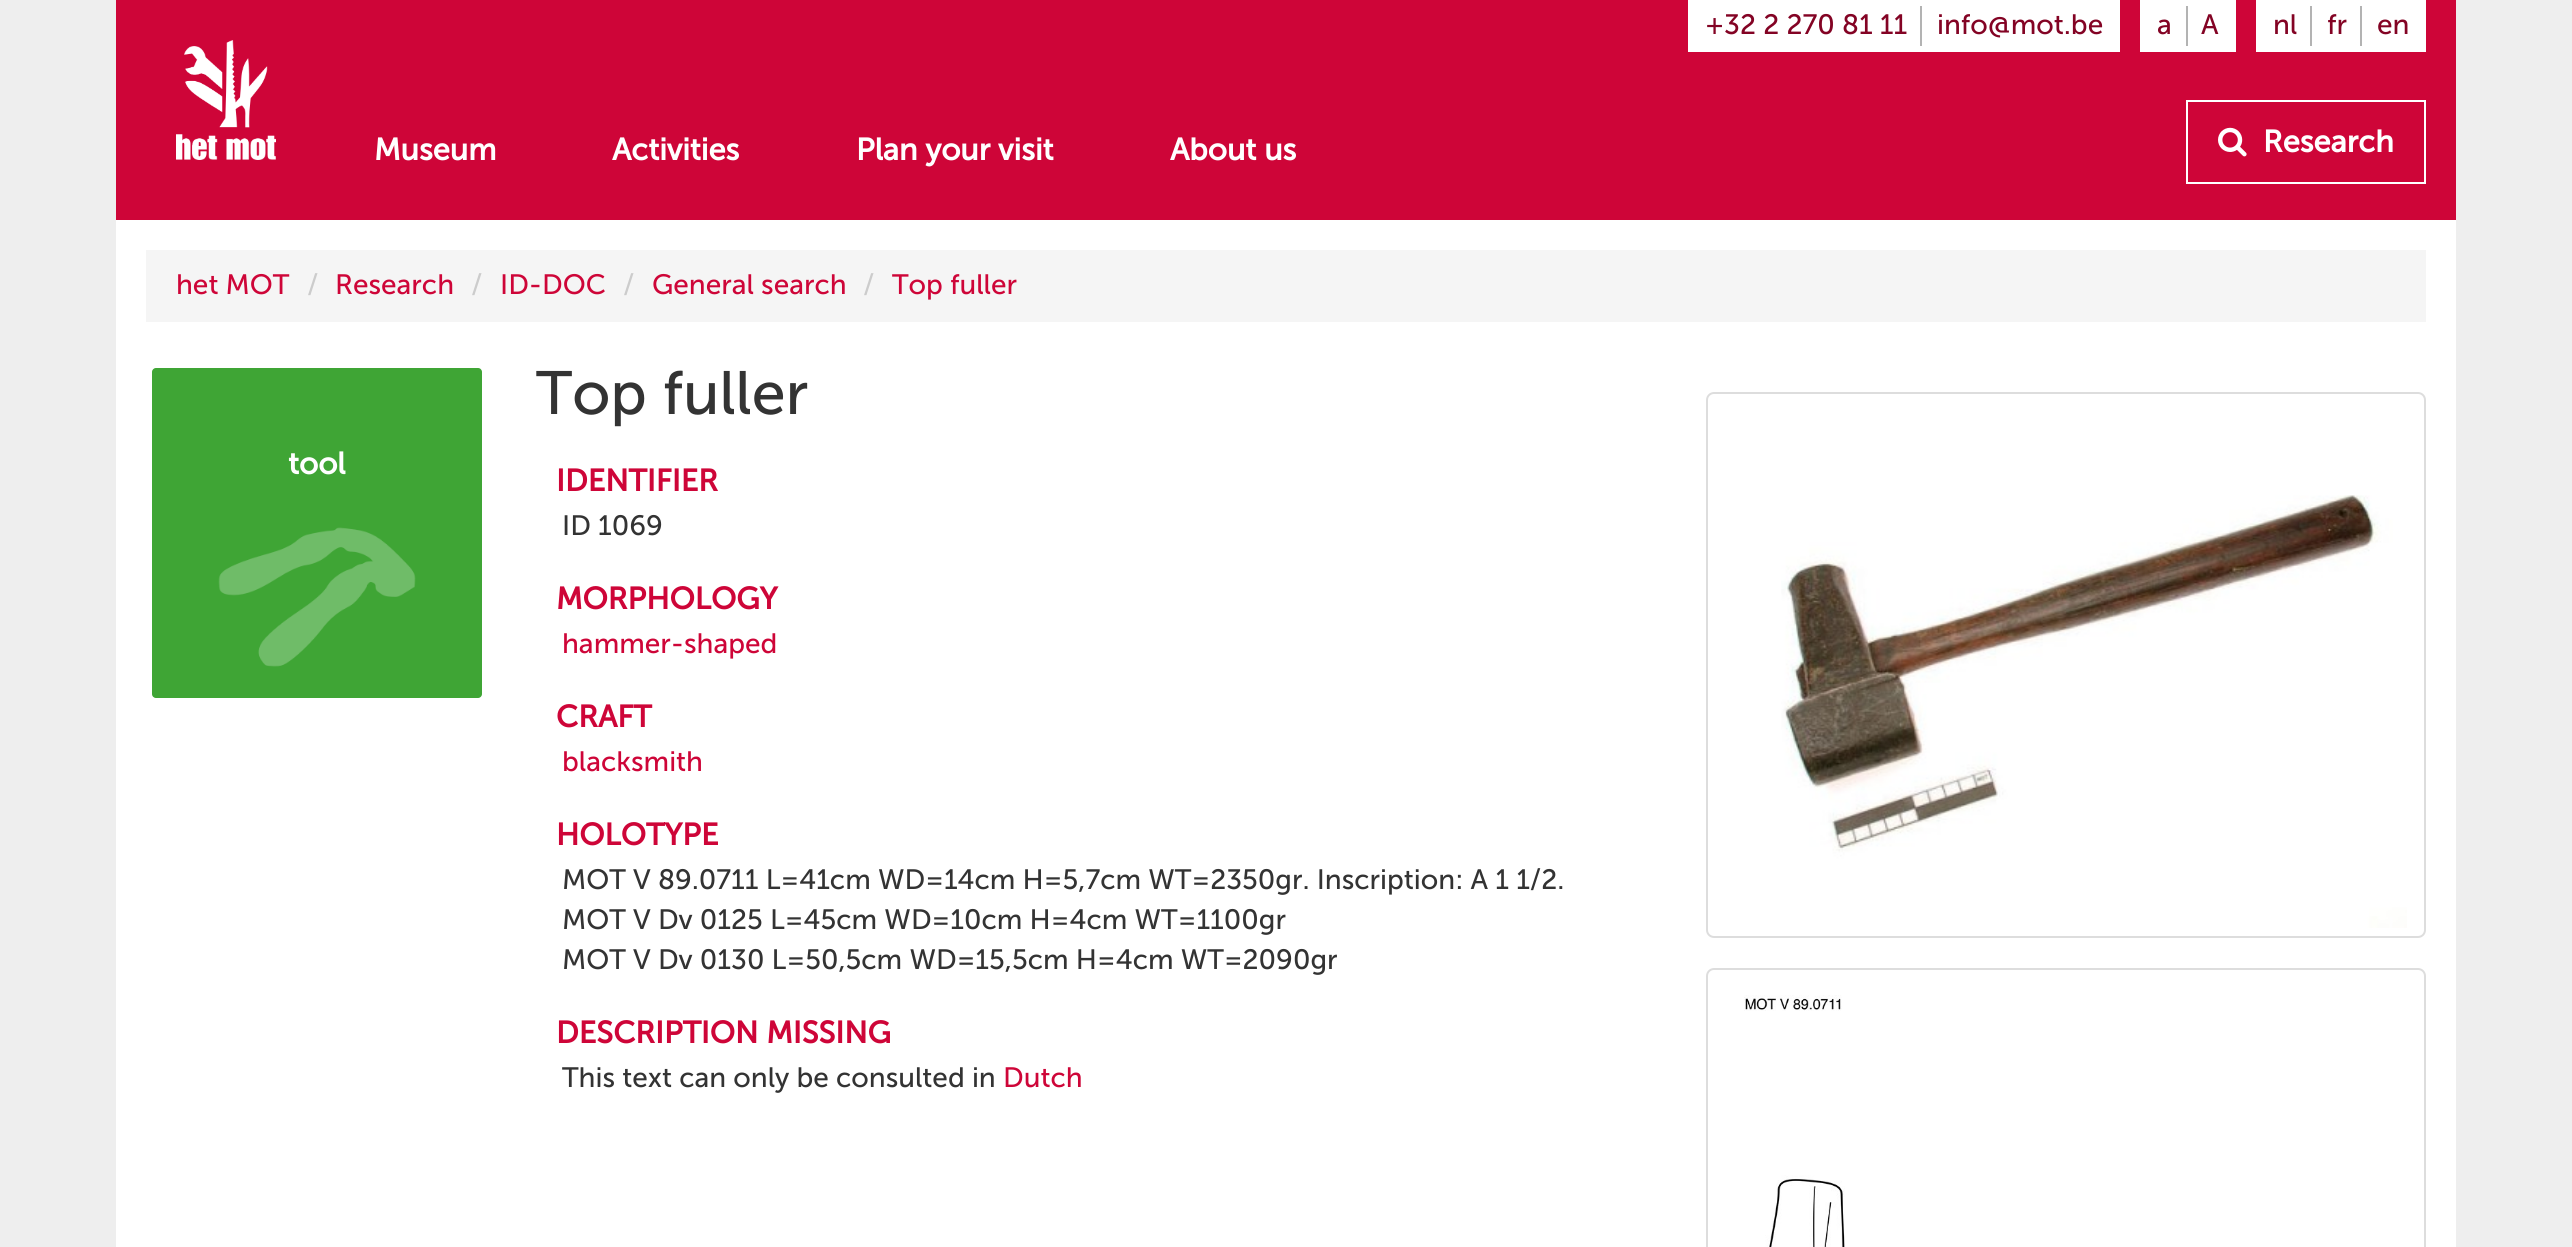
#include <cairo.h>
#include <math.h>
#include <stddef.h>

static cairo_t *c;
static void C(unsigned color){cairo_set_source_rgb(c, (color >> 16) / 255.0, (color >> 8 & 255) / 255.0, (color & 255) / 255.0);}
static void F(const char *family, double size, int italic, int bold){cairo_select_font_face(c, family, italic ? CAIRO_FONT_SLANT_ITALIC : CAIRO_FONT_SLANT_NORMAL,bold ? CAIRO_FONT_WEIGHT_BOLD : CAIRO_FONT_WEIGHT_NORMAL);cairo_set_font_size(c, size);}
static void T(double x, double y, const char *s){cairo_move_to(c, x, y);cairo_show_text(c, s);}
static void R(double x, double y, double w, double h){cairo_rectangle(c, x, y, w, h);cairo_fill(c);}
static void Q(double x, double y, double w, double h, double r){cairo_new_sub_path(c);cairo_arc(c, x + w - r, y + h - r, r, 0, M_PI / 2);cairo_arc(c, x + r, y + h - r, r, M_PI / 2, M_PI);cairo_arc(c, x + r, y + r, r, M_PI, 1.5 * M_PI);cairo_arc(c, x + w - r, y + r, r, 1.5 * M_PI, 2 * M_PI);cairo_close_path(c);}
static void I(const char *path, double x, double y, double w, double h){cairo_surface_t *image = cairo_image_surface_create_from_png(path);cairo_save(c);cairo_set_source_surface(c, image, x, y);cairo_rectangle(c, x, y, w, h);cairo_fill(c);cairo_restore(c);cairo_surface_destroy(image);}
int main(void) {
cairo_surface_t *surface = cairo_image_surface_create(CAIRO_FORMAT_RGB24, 2572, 1247);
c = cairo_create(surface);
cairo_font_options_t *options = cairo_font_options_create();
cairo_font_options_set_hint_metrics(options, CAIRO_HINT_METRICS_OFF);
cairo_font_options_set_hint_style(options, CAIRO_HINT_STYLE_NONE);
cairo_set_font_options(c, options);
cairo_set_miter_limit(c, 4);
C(0xeeeeee);
cairo_paint(c);
C(0xffffff);
R(116,220,2340,1027);
C(0xce0538);
R(116,0,2340,220);
I("1.png",176,40,100,120);
C(0xffffff);
R(1688,0,432,52);
C(0xb3b3b3);
R(1920,6,2,40);
F("Museo Sans",28,0,0);
C(0x830324);
T(1705,34,"+32 2 270 81 11");
T(1937,34,"info@mot.be");
C(0xffffff);
R(2140,0,96,52);
C(0xb3b3b3);
R(2186,6,2,40);
C(0x830324);
T(2157,34,"a");
T(2201,34,"A");
C(0xffffff);
R(2256,0,170,52);
C(0xb3b3b3);
R(2310,6,2,40);
C(0x830324);
T(2273,34,"nl");
C(0xb3b3b3);
R(2360,6,2,40);
C(0x830324);
T(2327,34,"fr");
T(2377,34,"en");
F("Museo Sans",30.75,0,1);
C(0xffffff);
T(374,160,"Museum");
T(612,160,"Activities");
T(856,160,"Plan your visit");
T(1170,160,"About us");
cairo_rectangle(c,2187,101,238,82);
cairo_stroke(c);
I("2.png",2218,127,29,30);
T(2263,152,"Research");
C(0xf5f5f5);
R(146,250,2280,72);
F("Museo Sans",28,0,0);
C(0xce0538);
T(176,294,"het MOT");
C(0xcccccc);
T(307,294,"/");
C(0xce0538);
T(335,294,"Research");
C(0xcccccc);
T(471,294,"/");
C(0xce0538);
T(500,294,"ID-DOC");
C(0xcccccc);
T(623,294,"/");
C(0xce0538);
T(652,294,"General search");
C(0xcccccc);
T(863,294,"/");
C(0xce0538);
T(892,294,"Top fuller");
C(0x3fa535);
Q(152,368,330,330,4);
cairo_fill(c);
F("Museo Sans",30.75,0,1);
C(0xffffff);
T(288,474,"tool");
I("3.png",218,527,198,140);
F("Museo Sans",61,0,0);
C(0x333333);
T(536,414,"Top fuller");
F("Museo Sans",30.75,0,1);
C(0xce0538);
T(556,491,"IDENTIFIER");
F("Museo Sans",28,0,0);
C(0x333333);
T(562,535,"ID 1069");
F("Museo Sans",30.75,0,1);
C(0xce0538);
T(556,609,"MORPHOLOGY");
F("Museo Sans",28,0,0);
T(562,653,"hammer-shaped");
F("Museo Sans",30.75,0,1);
T(556,727,"CRAFT");
F("Museo Sans",28,0,0);
T(562,771,"blacksmith");
F("Museo Sans",30.75,0,1);
T(556,845,"HOLOTYPE");
F("Museo Sans",28,0,0);
C(0x333333);
T(562,889,"MOT V 89.0711 L=41cm WD=14cm H=5,7cm WT=2350gr. Inscription: A 1 1/2.");
T(562,929,"MOT V Dv 0125 L=45cm WD=10cm H=4cm WT=1100gr");
T(562,969,"MOT V Dv 0130 L=50,5cm WD=15,5cm H=4cm WT=2090gr");
F("Museo Sans",30.75,0,1);
C(0xce0538);
T(556,1043,"DESCRIPTION MISSING");
F("Museo Sans",28,0,0);
C(0x333333);
T(562,1087,"This text can only be consulted in");
C(0xce0538);
T(1003,1087,"Dutch");
Q(1707,393,718,544,7);
C(0xdddddd);
cairo_stroke(c);
I("4.png",1781,495,626,433);
Q(1707,969,718,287,7);
cairo_stroke(c);
I("5.png",1744,995,101,252);
cairo_surface_write_to_png(surface, "o.png");
cairo_font_options_destroy(options);
cairo_destroy(c);
cairo_surface_destroy(surface);
return 0;
}
